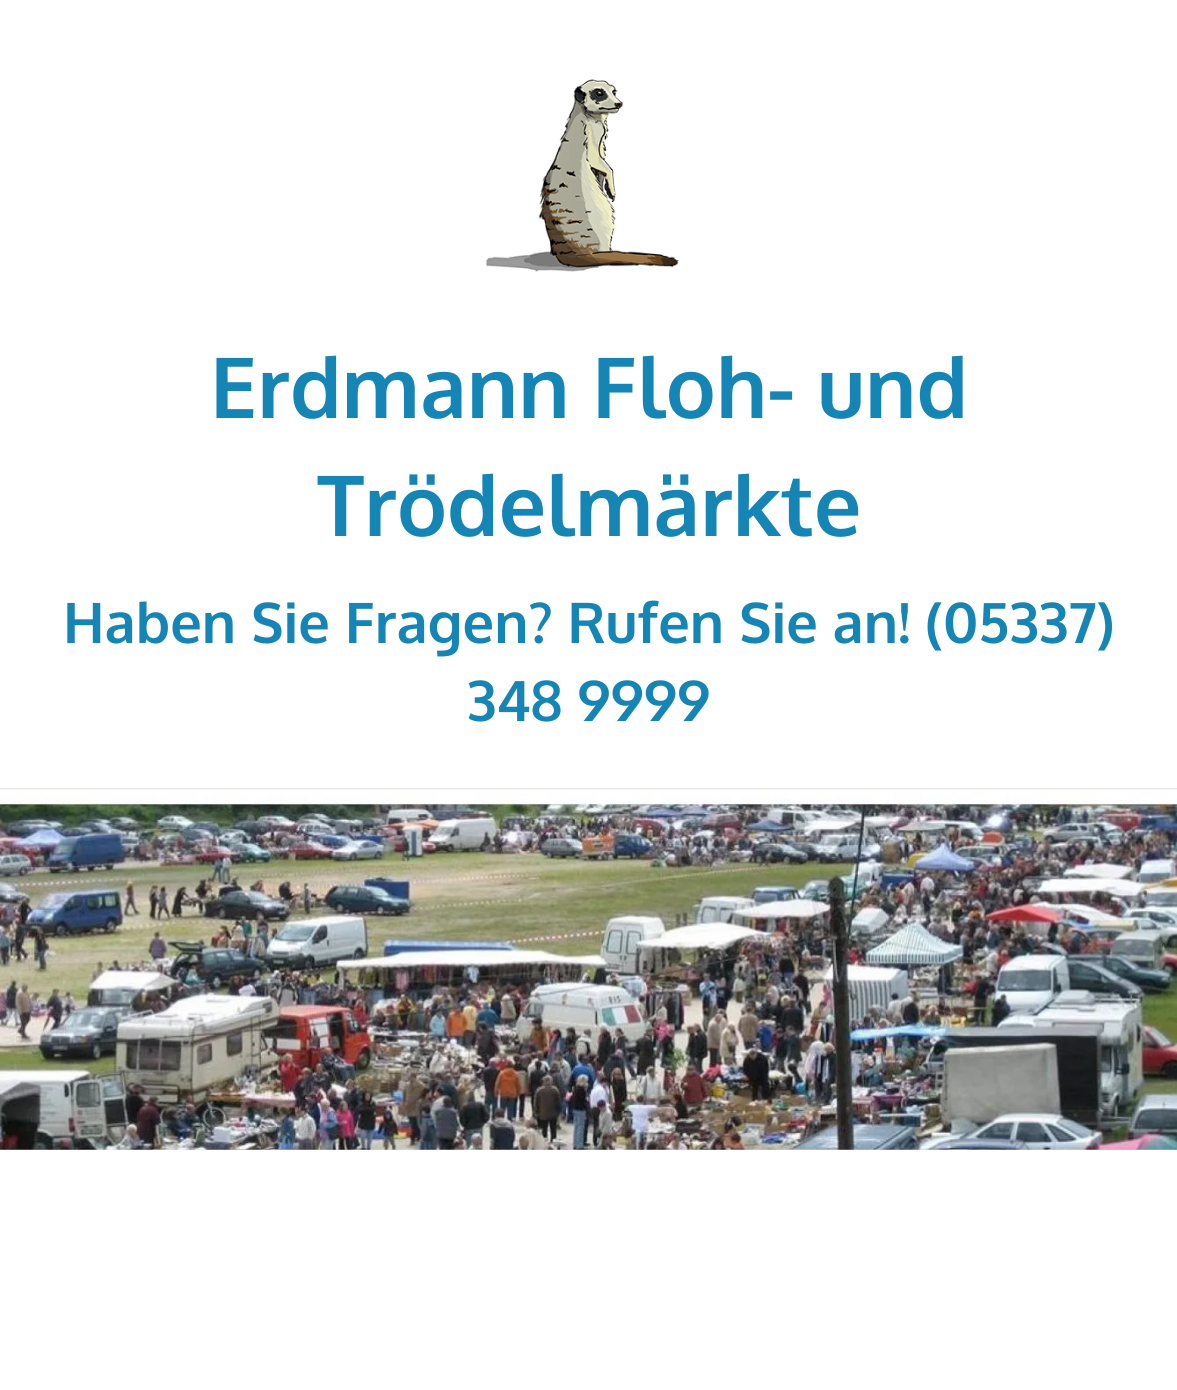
#include <cairo.h>
#include <math.h>
#include <stddef.h>

static cairo_t *c;
static void C(unsigned color){cairo_set_source_rgb(c, (color >> 16) / 255.0, (color >> 8 & 255) / 255.0, (color & 255) / 255.0);}
static void F(const char *family, double size, int italic, int bold){cairo_select_font_face(c, family, italic ? CAIRO_FONT_SLANT_ITALIC : CAIRO_FONT_SLANT_NORMAL,bold ? CAIRO_FONT_WEIGHT_BOLD : CAIRO_FONT_WEIGHT_NORMAL);cairo_set_font_size(c, size);}
static void T(double x, double y, const char *s){cairo_move_to(c, x, y);cairo_show_text(c, s);}
static void R(double x, double y, double w, double h){cairo_rectangle(c, x, y, w, h);cairo_fill(c);}
static void I(const char *path, double x, double y, double w, double h){cairo_surface_t *image = cairo_image_surface_create_from_png(path);cairo_save(c);cairo_set_source_surface(c, image, x, y);cairo_rectangle(c, x, y, w, h);cairo_fill(c);cairo_restore(c);cairo_surface_destroy(image);}
int main(void) {
cairo_surface_t *surface = cairo_image_surface_create(CAIRO_FORMAT_RGB24, 1177, 1390);
c = cairo_create(surface);
cairo_font_options_t *options = cairo_font_options_create();
cairo_font_options_set_hint_metrics(options, CAIRO_HINT_METRICS_OFF);
cairo_font_options_set_hint_style(options, CAIRO_HINT_STYLE_NONE);
cairo_set_font_options(c, options);
cairo_set_miter_limit(c, 4);
C(0xe5e5e5);
cairo_paint(c);
C(0xffffff);
R(0,0,1177,788);
I("1.png",486,79,193,193);
F("Oxygen",84,0,1);
C(0x1585b5);
T(210,418,"Erdmann Floh- und");
T(317,536,"Trödelmärkte");
F("Oxygen",56,0,1);
T(63,643,"Haben Sie Fragen? Rufen Sie an! (05337)");
T(467,721,"348 9999");
I("2.png",0,789,1177,361);
C(0xffffff);
R(0,1150,1177,240);
cairo_surface_write_to_png(surface, "o.png");
cairo_font_options_destroy(options);
cairo_destroy(c);
cairo_surface_destroy(surface);
return 0;
}
